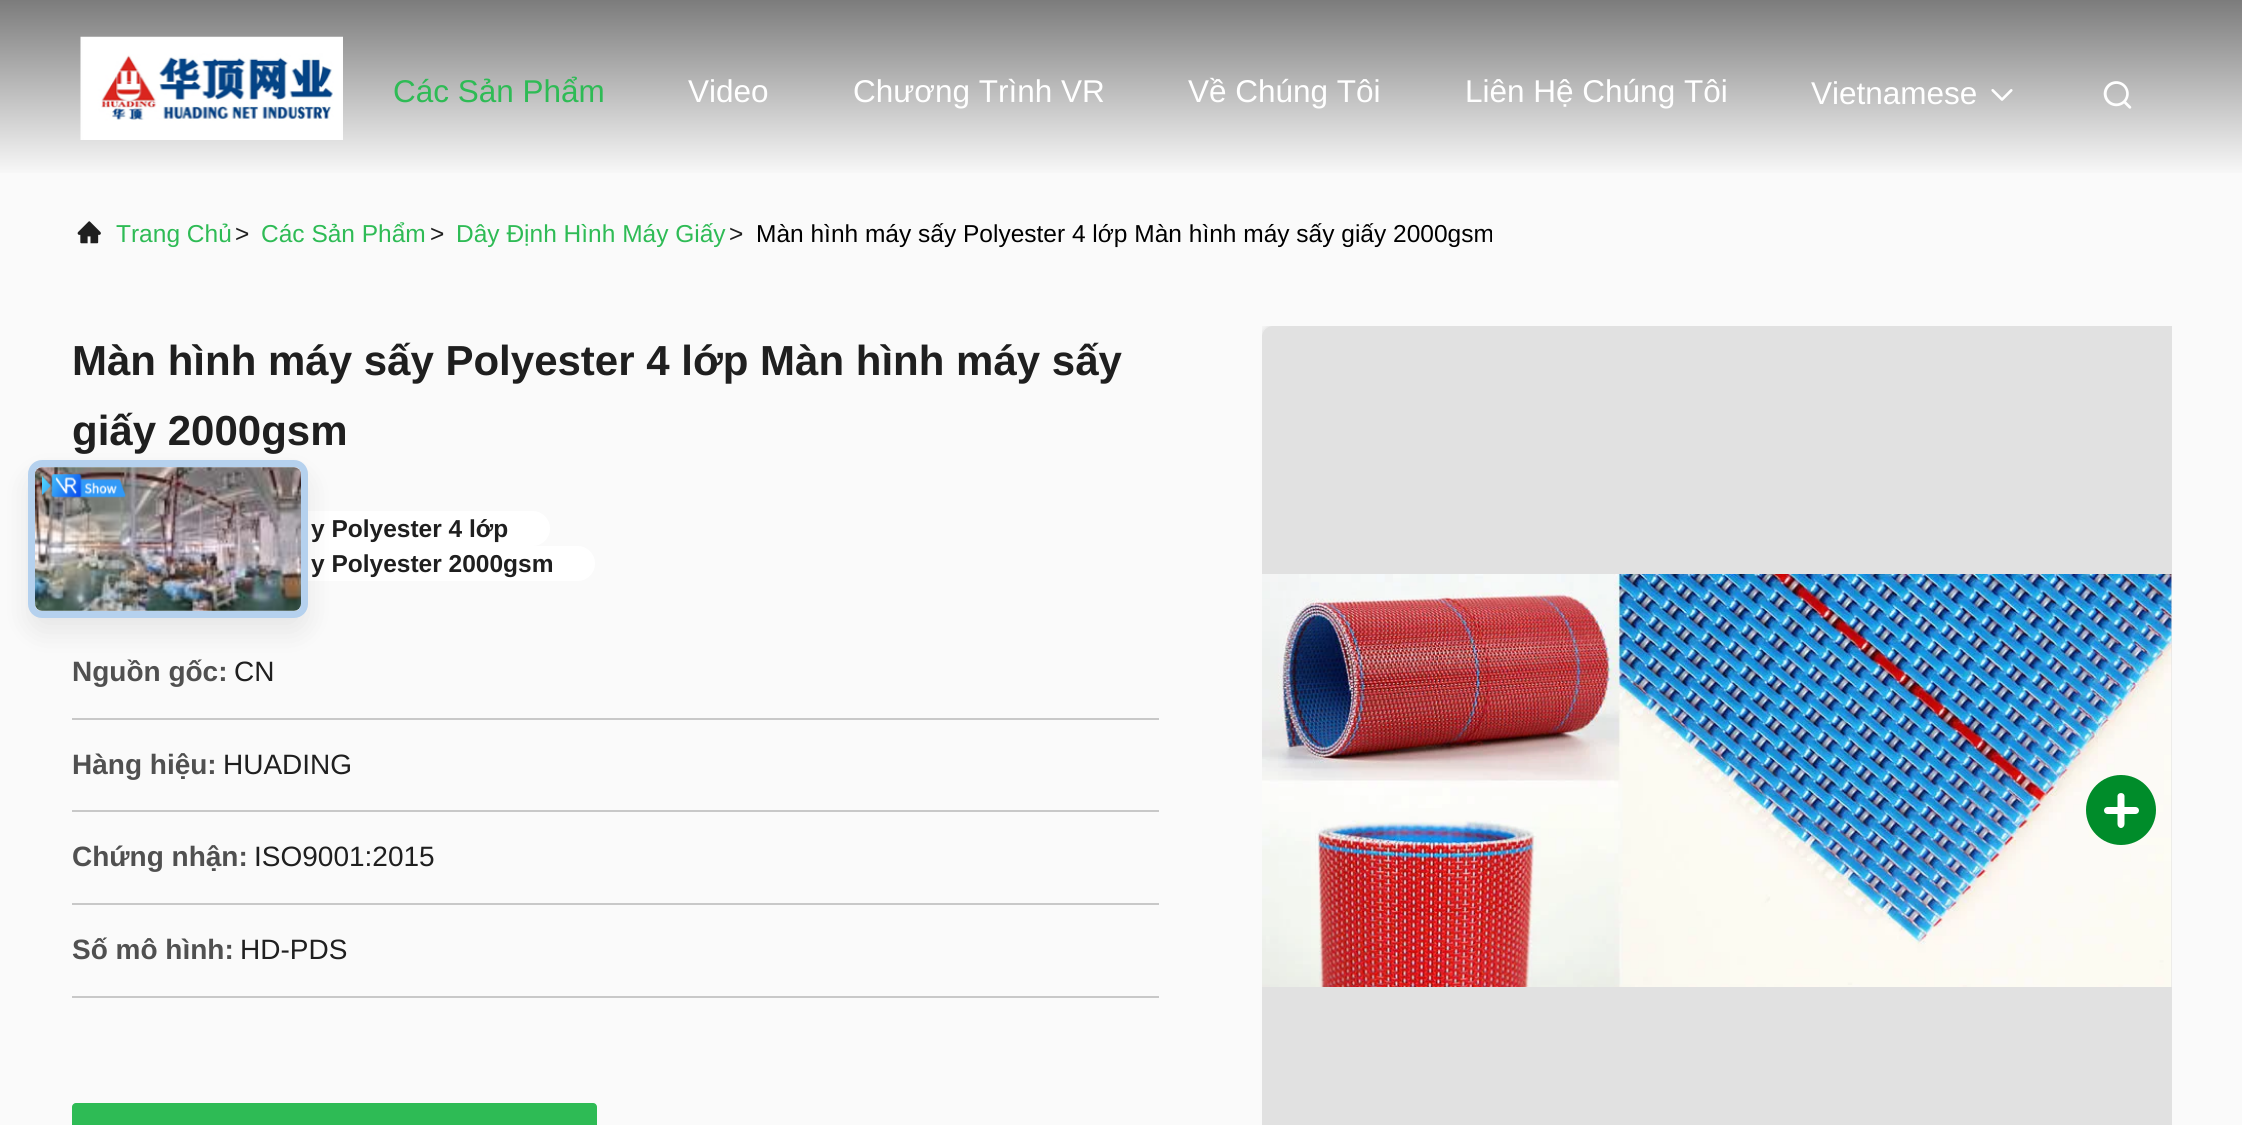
#include <cairo.h>
#include <math.h>
#include <stddef.h>

static cairo_t *c;
static void C(unsigned color){cairo_set_source_rgb(c, (color >> 16) / 255.0, (color >> 8 & 255) / 255.0, (color & 255) / 255.0);}
static void F(const char *family, double size, int italic, int bold){cairo_select_font_face(c, family, italic ? CAIRO_FONT_SLANT_ITALIC : CAIRO_FONT_SLANT_NORMAL,bold ? CAIRO_FONT_WEIGHT_BOLD : CAIRO_FONT_WEIGHT_NORMAL);cairo_set_font_size(c, size);}
static void T(double x, double y, const char *s){cairo_move_to(c, x, y);cairo_show_text(c, s);}
static void R(double x, double y, double w, double h){cairo_rectangle(c, x, y, w, h);cairo_fill(c);}
static void Q(double x, double y, double w, double h, double r){cairo_new_sub_path(c);cairo_arc(c, x + w - r, y + h - r, r, 0, M_PI / 2);cairo_arc(c, x + r, y + h - r, r, M_PI / 2, M_PI);cairo_arc(c, x + r, y + r, r, M_PI, 1.5 * M_PI);cairo_arc(c, x + w - r, y + r, r, 1.5 * M_PI, 2 * M_PI);cairo_close_path(c);}
static void S(double x, double y, double w, double h, double r, double blur, double alpha){cairo_push_group_with_content(c, CAIRO_CONTENT_ALPHA);cairo_set_operator(c, CAIRO_OPERATOR_SOURCE);for (int i = 15; i >= -15 && fmin(w, h) + blur * i / 3 > 0; i -= 2) {double e = blur * i / 6;cairo_set_source_rgba(c, 0, 0, 0, alpha * erfc((i - 1) / 8.5) / 2);Q(x - e, y - e, w + 2 * e, h + 2 * e, fmax(0, fmin(r + e + blur * .6, fmin(w, h) / 2 + e)));cairo_fill(c);}cairo_pattern_t *soft = cairo_pop_group(c);cairo_mask(c, soft);cairo_pattern_destroy(soft);}
static void I(const char *path, double x, double y, double w, double h){cairo_surface_t *image = cairo_image_surface_create_from_png(path);cairo_save(c);cairo_set_source_surface(c, image, x, y);cairo_rectangle(c, x, y, w, h);cairo_fill(c);cairo_restore(c);cairo_surface_destroy(image);}
int main(void) {
cairo_surface_t *surface = cairo_image_surface_create(CAIRO_FORMAT_RGB24, 2242, 1125);
c = cairo_create(surface);
cairo_font_options_t *options = cairo_font_options_create();
cairo_font_options_set_hint_metrics(options, CAIRO_HINT_METRICS_OFF);
cairo_font_options_set_hint_style(options, CAIRO_HINT_STYLE_NONE);
cairo_set_font_options(c, options);
cairo_set_miter_limit(c, 4);
cairo_pattern_t *gradient;
C(0xfafafa);
cairo_paint(c);
gradient = cairo_pattern_create_linear(1122,0,1122,175);
cairo_pattern_add_color_stop_rgba(gradient,0,0.486,0.486,0.486,1);
cairo_pattern_add_color_stop_rgba(gradient,1,0.976,0.976,0.976,1);
cairo_set_source(c,gradient);
cairo_pattern_destroy(gradient);
R(0,0,2242,173);
I("1.png",80,36,263,104);
F("Liberation Sans",31.5,0,0);
C(0x2ebb55);
T(393,102,"Các Sản Phẩm");
C(0xffffff);
T(688,102,"Video");
T(853,102,"Chương Trình VR");
T(1188,102,"Về Chúng Tôi");
T(1465,102,"Liên Hệ Chúng Tôi");
T(1811,104,"Vietnamese");
I("2.png",1991,89,22,12);
I("3.png",2103,81,29,28);
I("4.png",77,221,24,23);
F("Liberation Sans",24.5,0,0);
C(0x2ebb55);
T(116,242,"Trang Chủ");
C(0x1f1f1f);
T(235,242,">");
C(0x2ebb55);
T(261,242,"Các Sản Phẩm");
C(0x1f1f1f);
T(430,242,">");
C(0x2ebb55);
T(456,242,"Dây Định Hình Máy Giấy");
C(0x1f1f1f);
T(729,242,">");
C(0x000000);
T(756,242,"Màn hình máy sấy Polyester 4 lớp Màn hình máy sấy giấy 2000gsm");
F("Liberation Sans",42,0,1);
C(0x1f1f1f);
T(72,375,"Màn hình máy sấy Polyester 4 lớp Màn hình máy sấy");
T(72,445,"giấy 2000gsm");
C(0xffffff);
Q(72,511,478,35,17.5);
cairo_fill(c);
F("Liberation Sans",24.5,0,1);
C(0x1f1f1f);
T(311,537,"y Polyester 4 lớp");
C(0xffffff);
Q(72,546,523,35,17.5);
cairo_fill(c);
C(0x1f1f1f);
T(311,572,"y Polyester 2000gsm");
C(0xc8c8c8);
R(72,718,1087,2);
F("Liberation Sans",28,0,1);
C(0x505050);
T(72,681,"Nguồn gốc:");
F("Liberation Sans",28,0,0);
C(0x1f1f1f);
T(234,681,"CN");
C(0xc8c8c8);
R(72,810,1087,2);
F("Liberation Sans",28,0,1);
C(0x505050);
T(72,774,"Hàng hiệu:");
F("Liberation Sans",28,0,0);
C(0x1f1f1f);
T(223,774,"HUADING");
C(0xc8c8c8);
R(72,903,1087,2);
F("Liberation Sans",28,0,1);
C(0x505050);
T(72,866,"Chứng nhận:");
F("Liberation Sans",28,0,0);
C(0x1f1f1f);
T(254,866,"ISO9001:2015");
C(0xc8c8c8);
R(72,996,1087,2);
F("Liberation Sans",28,0,1);
C(0x505050);
T(72,959,"Số mô hình:");
F("Liberation Sans",28,0,0);
C(0x1f1f1f);
T(240,959,"HD-PDS");
C(0x2ebb55);
Q(72,1103,525,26,4);
cairo_fill(c);
cairo_save(c);
cairo_rectangle(c,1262,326,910,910);
cairo_clip(c);
C(0x000000);
S(1262,326,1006,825,11,5,.15);
cairo_restore(c);
C(0xe1e1e1);
cairo_new_path(c);
cairo_move_to(c,1273,326);
cairo_line_to(c,2172,326);
cairo_line_to(c,2172,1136);
cairo_line_to(c,1273,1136);
cairo_curve_to(c,1267,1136,1262,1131,1262,1125);
cairo_line_to(c,1262,337);
cairo_curve_to(c,1262,331,1267,326,1273,326);
cairo_close_path(c);
cairo_fill(c);
I("5.png",1262,574,910,413);
C(0x000000);
S(28,474,280,158,14,14,.08);
C(0xeeeeee);
Q(28,460,280,158,14);
cairo_fill(c);
Q(31.5,463.5,273,151,10.5);
cairo_set_source_rgba(c,0.016,0.471,0.929,0.24);
cairo_set_line_width(c,7);
cairo_stroke(c);
C(0xeeeeee);
Q(35,467,266,144,7);
cairo_fill(c);
I("6.png",35,467,266,144);
I("7.png",42,474,84,24);
C(0x008c2a);
cairo_arc(c,2121,810,35,0,2 * M_PI);
cairo_fill(c);
C(0xffffff);
Q(2104,807,35,7,3.5);
cairo_fill(c);
cairo_new_path(c);
cairo_move_to(c,2124.5,796);
cairo_line_to(c,2124.5,824);
cairo_curve_to(c,2124.5,826,2123,828,2121,828);
cairo_curve_to(c,2119,828,2117.5,826,2117.5,824);
cairo_line_to(c,2117.5,796);
cairo_curve_to(c,2117.5,794.5,2119,793,2121,793);
cairo_curve_to(c,2123,793,2124.5,794.5,2124.5,796);
cairo_close_path(c);
cairo_fill(c);
cairo_surface_write_to_png(surface, "o.png");
cairo_font_options_destroy(options);
cairo_destroy(c);
cairo_surface_destroy(surface);
return 0;
}
